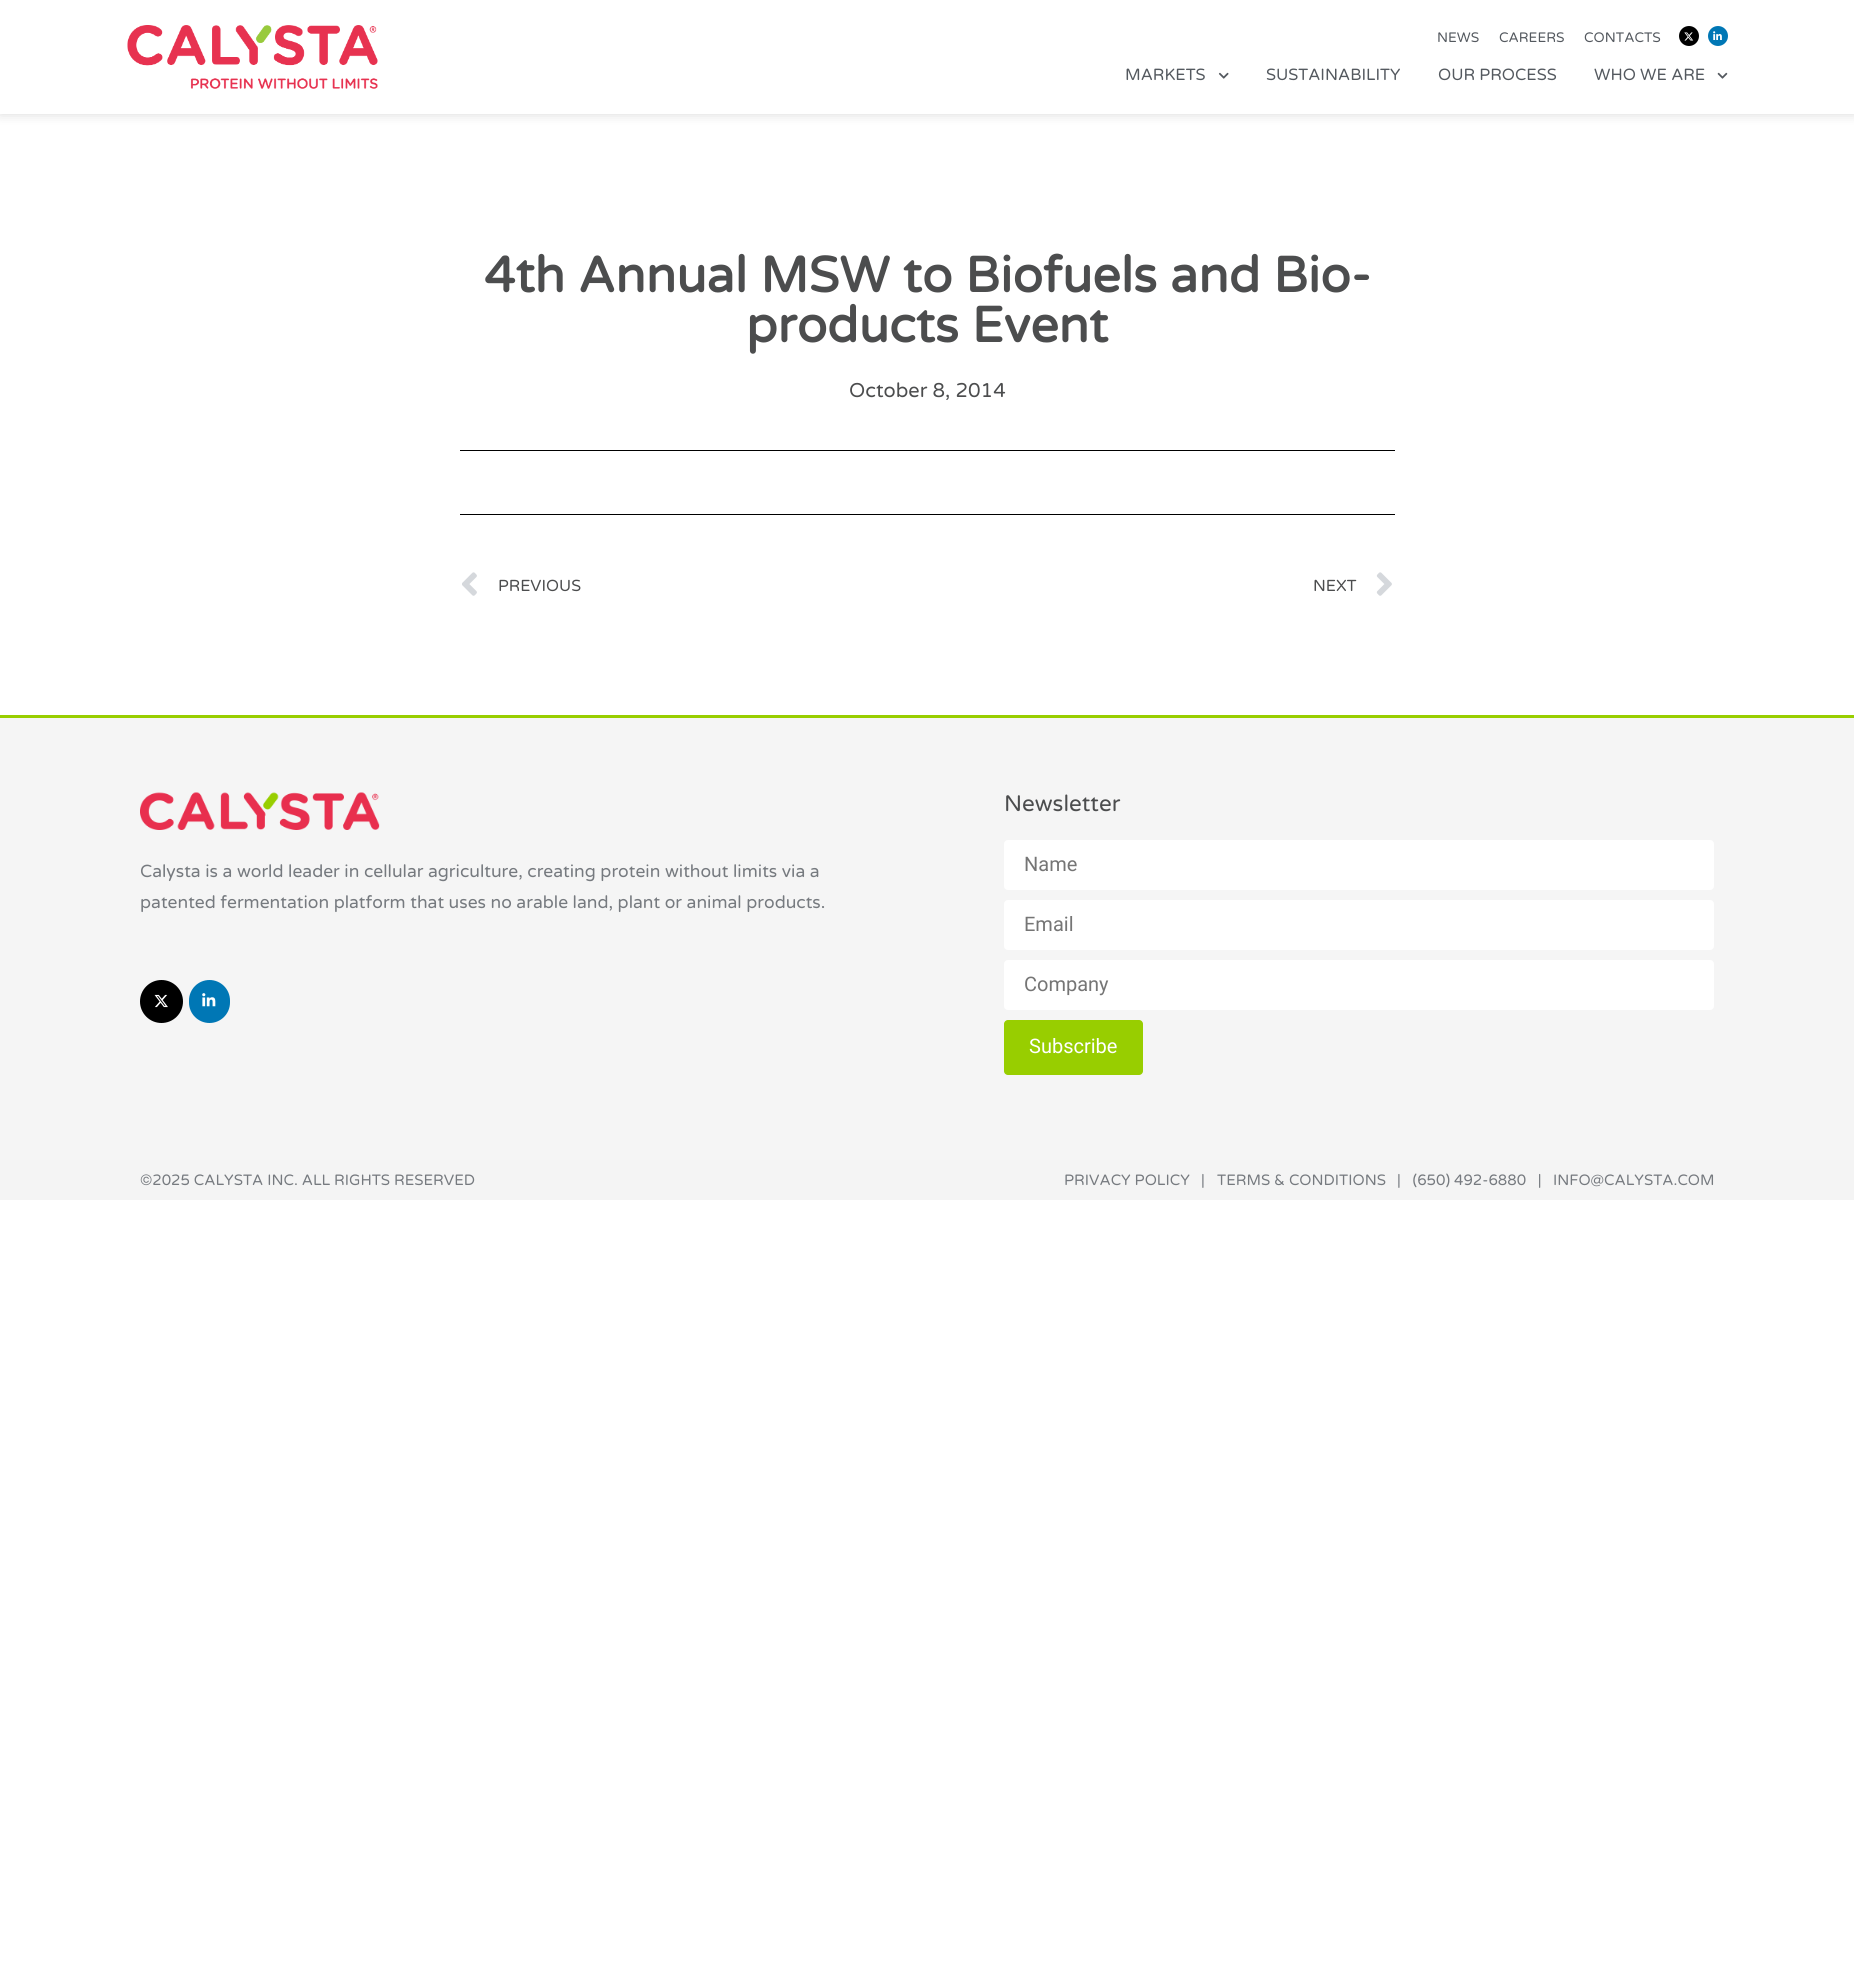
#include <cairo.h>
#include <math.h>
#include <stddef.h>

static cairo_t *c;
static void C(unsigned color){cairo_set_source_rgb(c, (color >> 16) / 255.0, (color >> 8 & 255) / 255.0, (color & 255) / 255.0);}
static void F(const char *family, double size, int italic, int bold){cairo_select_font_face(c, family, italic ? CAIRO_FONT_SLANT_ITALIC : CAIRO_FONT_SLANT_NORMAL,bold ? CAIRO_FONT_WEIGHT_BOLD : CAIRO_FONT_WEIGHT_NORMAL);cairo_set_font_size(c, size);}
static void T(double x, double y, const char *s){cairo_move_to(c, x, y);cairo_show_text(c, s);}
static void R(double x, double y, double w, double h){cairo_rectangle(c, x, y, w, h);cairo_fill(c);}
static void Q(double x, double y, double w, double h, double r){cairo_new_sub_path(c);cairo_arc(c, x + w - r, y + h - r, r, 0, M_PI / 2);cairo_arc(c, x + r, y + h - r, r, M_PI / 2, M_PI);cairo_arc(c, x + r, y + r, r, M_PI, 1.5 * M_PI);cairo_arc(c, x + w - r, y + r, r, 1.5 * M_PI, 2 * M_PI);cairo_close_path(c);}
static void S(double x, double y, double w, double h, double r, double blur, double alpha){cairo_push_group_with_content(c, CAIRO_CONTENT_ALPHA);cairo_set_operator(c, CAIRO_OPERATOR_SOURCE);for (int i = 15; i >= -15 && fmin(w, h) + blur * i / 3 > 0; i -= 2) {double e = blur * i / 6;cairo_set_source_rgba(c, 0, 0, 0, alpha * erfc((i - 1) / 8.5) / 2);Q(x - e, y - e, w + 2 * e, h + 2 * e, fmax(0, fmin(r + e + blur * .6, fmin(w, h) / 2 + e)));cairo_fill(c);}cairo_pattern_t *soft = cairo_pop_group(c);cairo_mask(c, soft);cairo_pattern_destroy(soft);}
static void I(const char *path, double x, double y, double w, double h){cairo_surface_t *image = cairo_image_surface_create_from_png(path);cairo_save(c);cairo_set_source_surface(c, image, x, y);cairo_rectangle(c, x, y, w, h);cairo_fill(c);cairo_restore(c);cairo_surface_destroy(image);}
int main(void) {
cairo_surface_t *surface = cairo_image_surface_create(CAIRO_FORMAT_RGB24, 1854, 1964);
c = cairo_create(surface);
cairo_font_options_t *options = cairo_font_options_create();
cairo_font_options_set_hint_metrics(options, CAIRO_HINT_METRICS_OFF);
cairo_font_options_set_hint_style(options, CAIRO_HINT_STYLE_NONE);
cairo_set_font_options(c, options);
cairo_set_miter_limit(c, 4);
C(0xffffff);
cairo_paint(c);
C(0x000000);
S(0,0,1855,114,0,6,.15);
C(0xffffff);
R(0,0,1854,114);
I("1.png",127,25,251,64);
F("Varela Round",13.75,0,0);
C(0x54595f);
T(1437,42,"NEWS");
T(1499,42,"CAREERS");
T(1584,42,"CONTACTS");
C(0x000000);
cairo_new_path(c);
cairo_arc(c,1689,36,10,0,2 * M_PI);
cairo_fill(c);
I("2.png",1684,32,10,9);
C(0x0077b5);
cairo_arc(c,1718,36,10,0,2 * M_PI);
cairo_fill(c);
I("3.png",1713,31,9,9);
F("Varela Round",16.25,0,0);
C(0x54595f);
T(1125,80,"MARKETS");
I("4.png",1218,72,11,7);
T(1266,80,"SUSTAINABILITY");
T(1438,80,"OUR PROCESS");
T(1594,80,"WHO WE ARE");
I("5.png",1717,72,11,7);
F("Varela Round",50,0,1);
C(0x4c4d4e);
T(484,292,"4th Annual MSW to Biofuels and Bio-");
T(746,342,"products Event");
F("Varela Round",20,0,0);
T(849,397,"October 8, 2014");
C(0x000000);
R(460,450,935,1);
R(460,514,935,1);
I("6.png",462,572,15,24);
F("Varela Round",16,0,0);
C(0x4c4d4e);
T(498,591,"PREVIOUS");
T(1313,591,"NEXT");
I("7.png",1376,572,16,24);
C(0xf5f5f5);
R(0,718,1854,442);
C(0x98ce00);
R(0,715,1854,3);
I("8.png",140,792,240,38);
F("Varela Round",17.5,0,0);
C(0x767a7f);
T(140,877,"Calysta is a world leader in cellular agriculture, creating protein without limits via a");
T(140,908,"patented fermentation platform that uses no arable land, plant or animal products.");
C(0x000000);
cairo_new_path(c);
cairo_arc(c,161.5,1001.5,21.5,0,2 * M_PI);
cairo_fill(c);
I("9.png",154,994,14,14);
C(0x0077b5);
Q(189,980,41,43,20.5);
cairo_fill(c);
I("10.png",202,993,14,14);
F("Varela Round",22.5,0,0);
C(0x4c4d4e);
T(1004,811,"Newsletter");
C(0xffffff);
Q(1004,840,710,50,4);
cairo_fill(c);
F("Roboto",20,0,0);
C(0x757575);
T(1024,871,"Name");
C(0xffffff);
Q(1004,900,710,50,4);
cairo_fill(c);
C(0x757575);
T(1024,931,"Email");
C(0xffffff);
Q(1004,960,710,50,4);
cairo_fill(c);
C(0x757575);
T(1024,991,"Company");
C(0x98ce00);
Q(1004,1020,139,55,4);
cairo_fill(c);
C(0xffffff);
T(1029,1053,"Subscribe");
C(0xf4f4f4);
R(0,1160,1854,40);
F("Varela Round",15,0,0);
C(0x767a7f);
T(140,1185,"©2025 CALYSTA INC. ALL RIGHTS RESERVED");
T(1064,1185,"PRIVACY POLICY");
T(1201,1185,"|");
T(1217,1185,"TERMS & CONDITIONS");
T(1397,1185,"|   (650) 492-6880   |");
T(1553,1185,"INFO@CALYSTA.COM");
cairo_surface_write_to_png(surface, "o.png");
cairo_font_options_destroy(options);
cairo_destroy(c);
cairo_surface_destroy(surface);
return 0;
}
